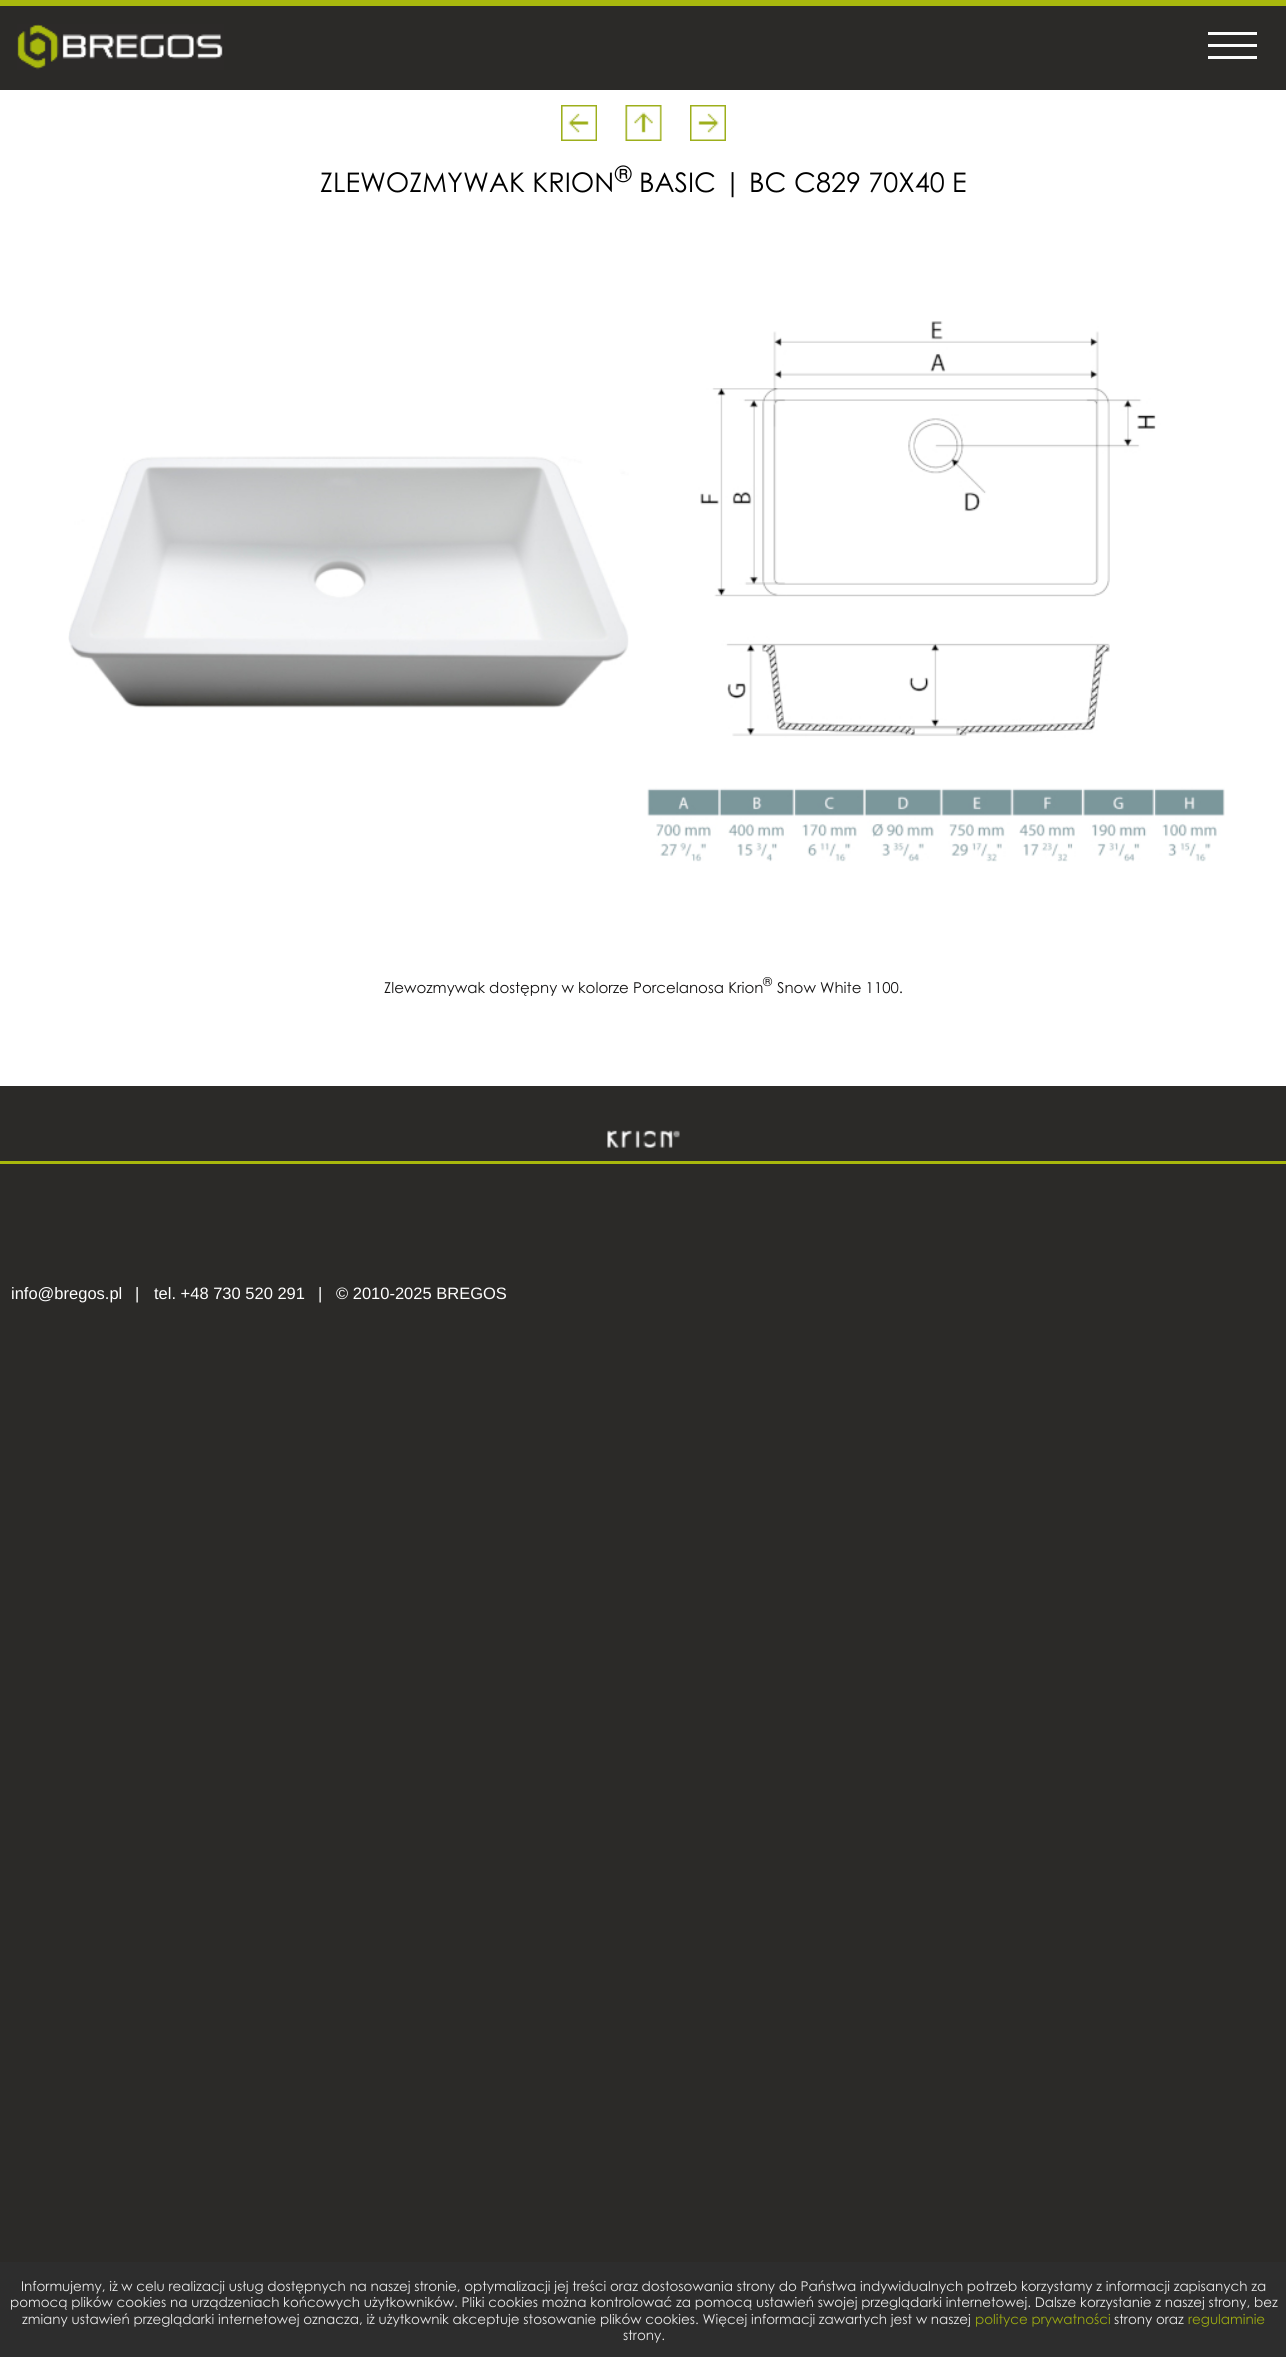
#include <cairo.h>
#include <math.h>
#include <stddef.h>

static cairo_t *c;
static void C(unsigned color){cairo_set_source_rgb(c, (color >> 16) / 255.0, (color >> 8 & 255) / 255.0, (color & 255) / 255.0);}
static void F(const char *family, double size, int italic, int bold){cairo_select_font_face(c, family, italic ? CAIRO_FONT_SLANT_ITALIC : CAIRO_FONT_SLANT_NORMAL,bold ? CAIRO_FONT_WEIGHT_BOLD : CAIRO_FONT_WEIGHT_NORMAL);cairo_set_font_size(c, size);}
static void T(double x, double y, const char *s){cairo_move_to(c, x, y);cairo_show_text(c, s);}
static void R(double x, double y, double w, double h){cairo_rectangle(c, x, y, w, h);cairo_fill(c);}
static void I(const char *path, double x, double y, double w, double h){cairo_surface_t *image = cairo_image_surface_create_from_png(path);cairo_save(c);cairo_set_source_surface(c, image, x, y);cairo_rectangle(c, x, y, w, h);cairo_fill(c);cairo_restore(c);cairo_surface_destroy(image);}
int main(void) {
cairo_surface_t *surface = cairo_image_surface_create(CAIRO_FORMAT_RGB24, 1286, 2357);
c = cairo_create(surface);
cairo_font_options_t *options = cairo_font_options_create();
cairo_font_options_set_hint_metrics(options, CAIRO_HINT_METRICS_OFF);
cairo_font_options_set_hint_style(options, CAIRO_HINT_STYLE_NONE);
cairo_set_font_options(c, options);
cairo_set_miter_limit(c, 4);
C(0x2b2a28);
cairo_paint(c);
C(0xa8b80e);
R(0,0,1286,6);
I("1.png",17,24,207,46);
C(0xfcfcfc);
R(1208,32,49,3);
R(1208,44,49,3);
R(1208,56,49,3);
C(0xffffff);
R(0,90,1286,996);
I("2.png",561,105,36,36);
I("3.png",625,105,37,36);
I("4.png",690,105,36,36);
F("Century Gothic",27,0,0);
C(0x000000);
T(320,192,"ZLEWOZMYWAK KRION");
F("Century Gothic",22,0,0);
T(615,182,"®");
F("Century Gothic",27,0,0);
T(639,192,"BASIC | BC C829 70X40 E");
I("5.png",68,456,561,252);
I("6.png",647,321,578,541);
F("Century Gothic",15,0,0);
C(0x151414);
T(384,993,"Zlewozmywak dostępny w kolorze Porcelanosa Krion");
F("Century Gothic",12,0,0);
T(763,986,"®");
F("Century Gothic",15,0,0);
T(777,993,"Snow White 1100.");
I("7.png",607,1130,73,18);
C(0xa8b80c);
R(0,1161,1286,3);
F("Liberation Sans",16.5,0,0);
C(0xffffff);
T(11,1299,"info@bregos.pl");
T(135,1299,"|");
T(154,1299,"tel. +48 730 520 291");
T(318,1299,"|");
T(336,1299,"© 2010-2025 BREGOS");
C(0x2d2d2d);
R(0,2262,1286,95);
F("Century Gothic",13.5,0,0);
C(0xeaeaea);
T(21,2291,"Informujemy, iż w celu realizacji usług dostępnych na naszej stronie, optymalizacji jej treści oraz dostosowania strony do Państwa indywidualnych potrzeb korzystamy z informacji zapisanych za");
T(10,2307,"pomocą plików cookies na urządzeniach końcowych użytkowników. Pliki cookies można kontrolować za pomocą ustawień swojej przeglądarki internetowej. Dalsze korzystanie z naszej strony, bez");
T(22,2324,"zmiany ustawień przeglądarki internetowej oznacza, iż użytkownik akceptuje stosowanie plików cookies. Więcej informacji zawartych jest w naszej");
C(0x9caa11);
T(975,2324,"polityce prywatności");
C(0xeaeaea);
T(1114,2324,"strony oraz");
C(0x9caa11);
T(1188,2324,"regulaminie");
C(0xeaeaea);
T(623,2340,"strony.");
cairo_surface_write_to_png(surface, "o.png");
cairo_font_options_destroy(options);
cairo_destroy(c);
cairo_surface_destroy(surface);
return 0;
}
